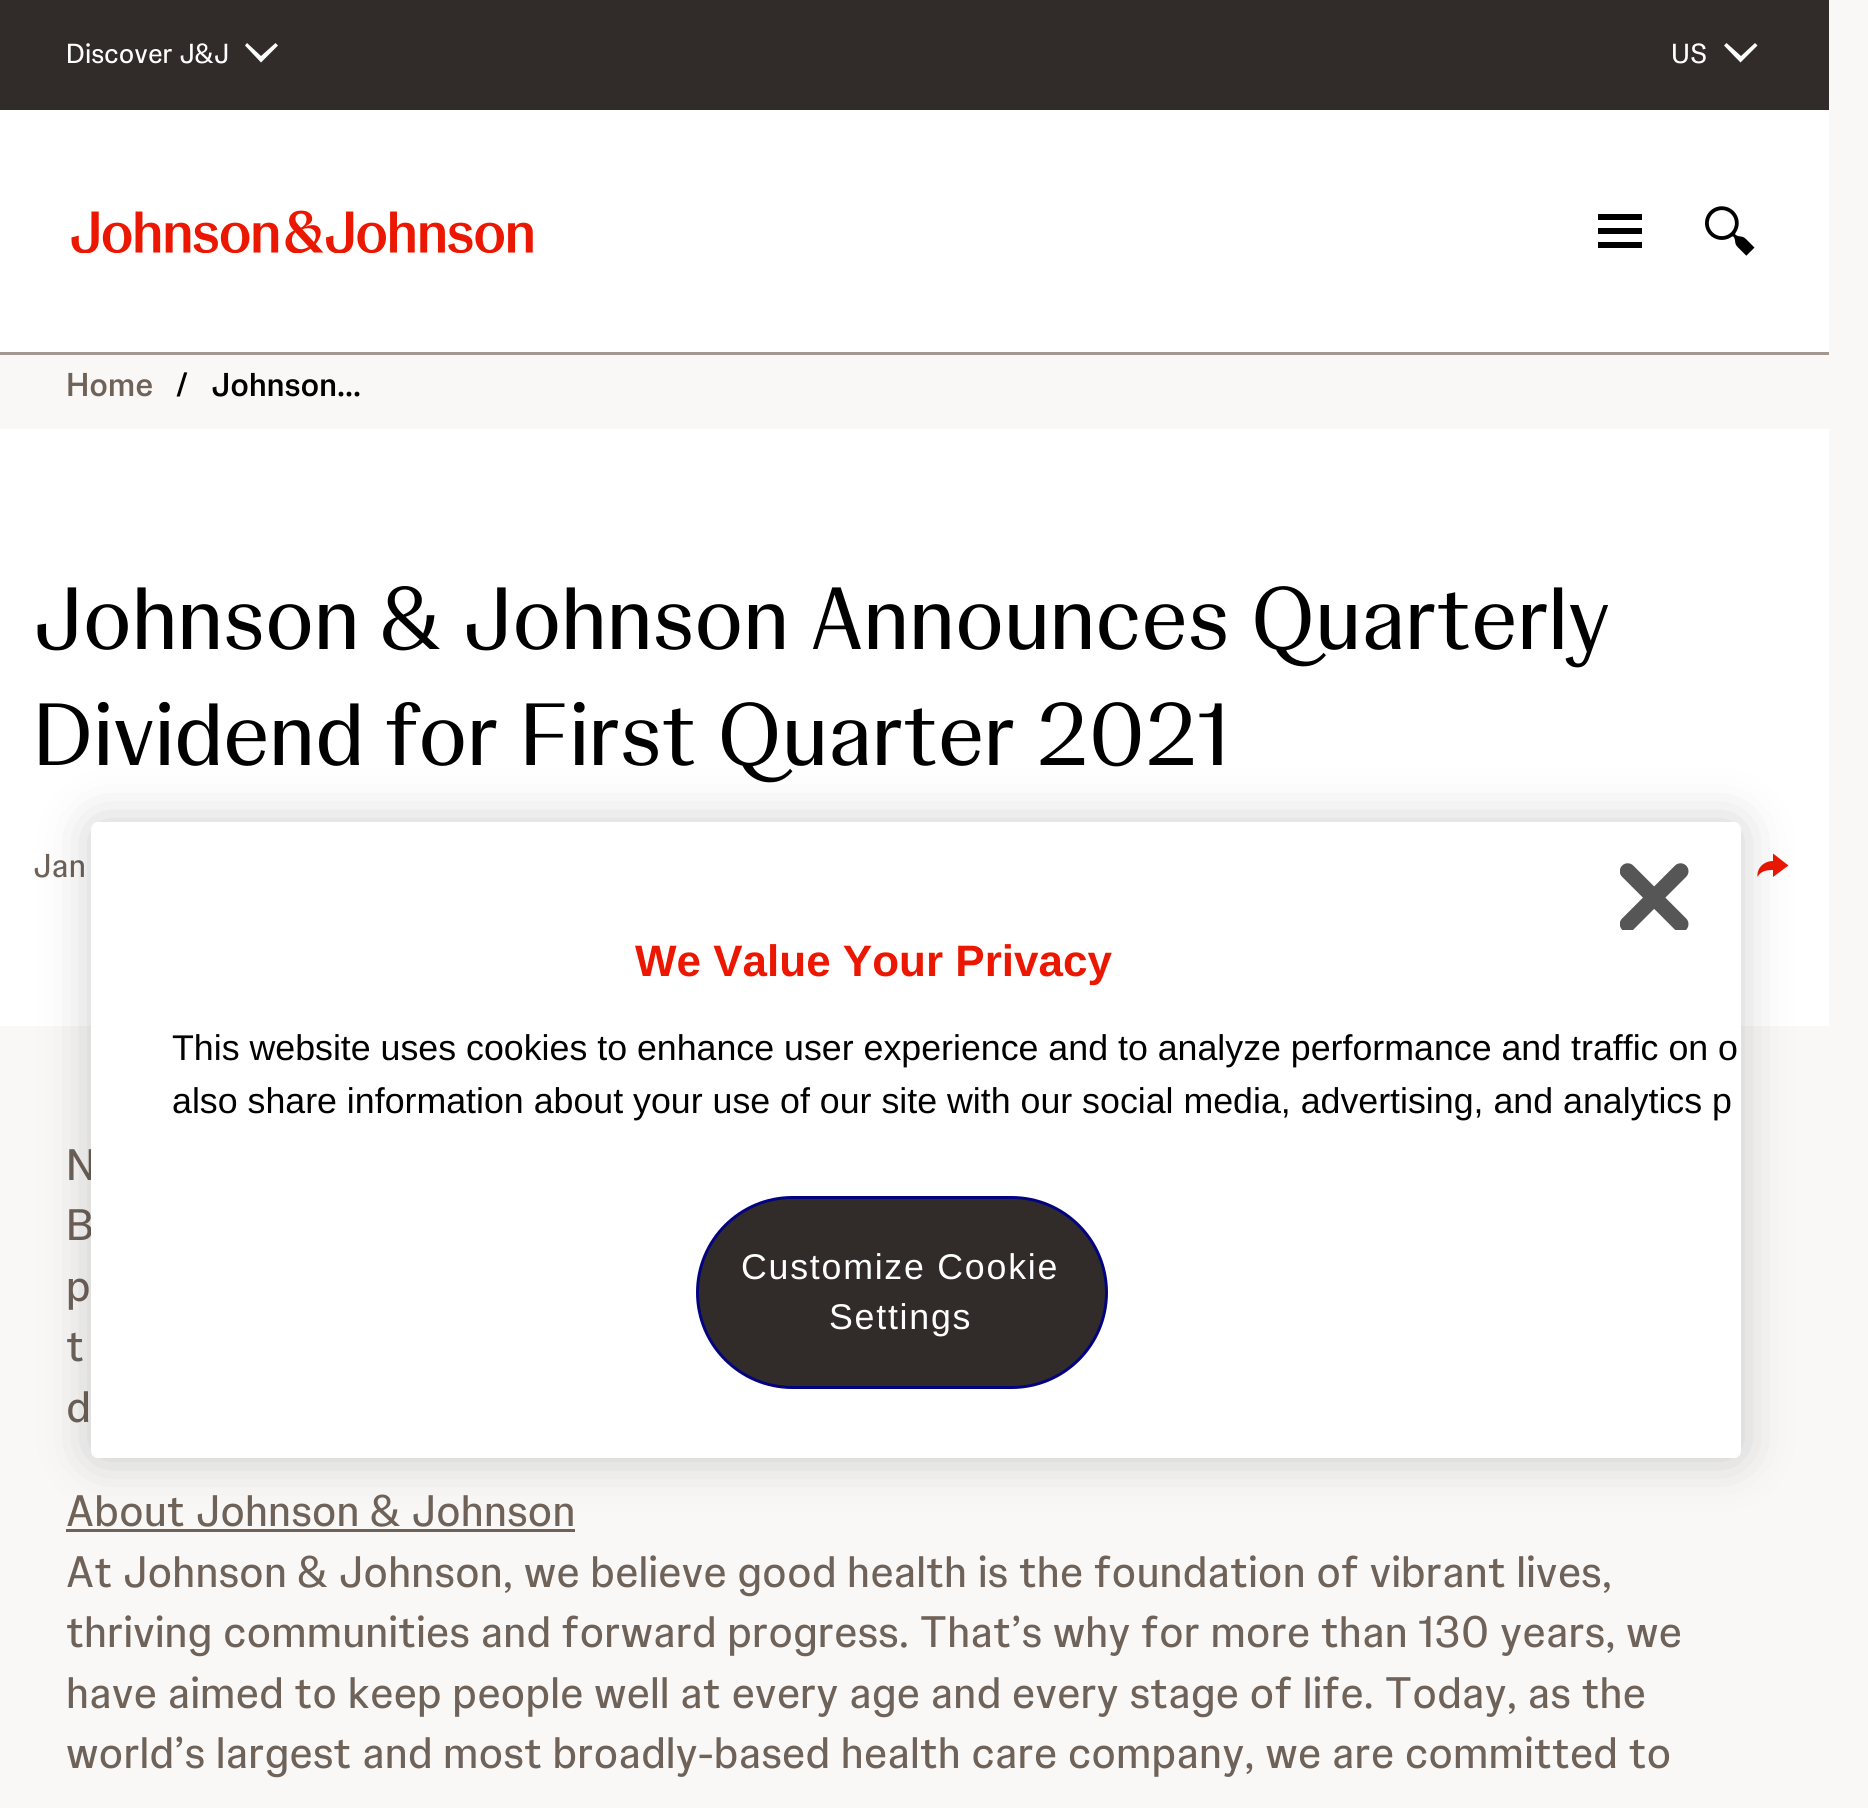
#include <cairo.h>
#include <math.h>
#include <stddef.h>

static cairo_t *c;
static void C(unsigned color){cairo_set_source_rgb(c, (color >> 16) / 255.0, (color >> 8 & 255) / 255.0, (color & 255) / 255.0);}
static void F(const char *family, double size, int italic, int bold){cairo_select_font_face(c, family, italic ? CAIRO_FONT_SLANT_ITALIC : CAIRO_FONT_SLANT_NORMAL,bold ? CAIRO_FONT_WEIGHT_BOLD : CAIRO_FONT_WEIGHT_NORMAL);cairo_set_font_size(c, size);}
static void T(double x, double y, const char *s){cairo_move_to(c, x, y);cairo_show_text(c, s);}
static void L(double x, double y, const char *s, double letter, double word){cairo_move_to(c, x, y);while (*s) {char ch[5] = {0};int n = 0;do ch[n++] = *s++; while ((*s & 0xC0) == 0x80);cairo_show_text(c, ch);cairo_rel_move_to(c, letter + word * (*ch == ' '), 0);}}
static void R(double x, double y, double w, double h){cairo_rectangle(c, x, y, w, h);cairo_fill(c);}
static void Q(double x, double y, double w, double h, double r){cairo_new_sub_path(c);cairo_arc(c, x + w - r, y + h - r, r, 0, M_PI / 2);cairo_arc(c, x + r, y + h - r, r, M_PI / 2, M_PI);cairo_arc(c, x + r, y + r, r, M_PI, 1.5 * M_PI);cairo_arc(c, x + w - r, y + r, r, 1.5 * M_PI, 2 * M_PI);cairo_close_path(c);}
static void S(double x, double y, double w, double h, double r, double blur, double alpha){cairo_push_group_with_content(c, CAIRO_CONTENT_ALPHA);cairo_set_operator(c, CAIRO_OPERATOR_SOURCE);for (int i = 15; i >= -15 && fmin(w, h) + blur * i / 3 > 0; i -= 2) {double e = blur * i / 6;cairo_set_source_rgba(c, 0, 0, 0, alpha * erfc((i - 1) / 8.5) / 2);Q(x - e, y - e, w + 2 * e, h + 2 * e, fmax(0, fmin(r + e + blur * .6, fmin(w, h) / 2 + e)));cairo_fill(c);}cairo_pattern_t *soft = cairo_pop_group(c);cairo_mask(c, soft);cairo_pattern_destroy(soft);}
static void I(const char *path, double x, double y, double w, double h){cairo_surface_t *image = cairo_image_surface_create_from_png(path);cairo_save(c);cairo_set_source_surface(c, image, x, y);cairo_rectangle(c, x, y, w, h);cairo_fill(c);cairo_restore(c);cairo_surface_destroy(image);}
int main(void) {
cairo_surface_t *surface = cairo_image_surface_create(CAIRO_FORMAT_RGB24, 1868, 1808);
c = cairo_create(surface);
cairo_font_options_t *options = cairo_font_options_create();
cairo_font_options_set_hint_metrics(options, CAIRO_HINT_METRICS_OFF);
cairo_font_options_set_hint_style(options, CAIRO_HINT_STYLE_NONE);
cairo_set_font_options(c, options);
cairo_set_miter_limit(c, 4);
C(0xf9f8f7);
cairo_paint(c);
C(0x312c2a);
R(0,0,1829,110);
F("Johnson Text",27.5,0,0);
C(0xffffff);
T(66,63,"Discover J&J");
cairo_new_path(c);
cairo_move_to(c,261,62.5);
cairo_line_to(c,245,45.5);
cairo_line_to(c,247,43);
cairo_line_to(c,261,56);
cairo_line_to(c,275.5,43);
cairo_line_to(c,278,45.5);
cairo_close_path(c);
cairo_fill(c);
T(1671,63,"US");
cairo_new_path(c);
cairo_move_to(c,1740.5,62.5);
cairo_line_to(c,1724,45.5);
cairo_line_to(c,1726.5,43);
cairo_line_to(c,1741,56);
cairo_line_to(c,1755,43);
cairo_line_to(c,1757.5,45.5);
cairo_close_path(c);
cairo_fill(c);
R(0,110,1829,242);
I("1.png",71,210,462,43);
C(0x000000);
cairo_new_path(c);
cairo_move_to(c,1642,248);
cairo_line_to(c,1598,248);
cairo_line_to(c,1598,242);
cairo_line_to(c,1642,242);
cairo_close_path(c);
cairo_move_to(c,1642,234);
cairo_line_to(c,1598,234);
cairo_line_to(c,1598,228);
cairo_line_to(c,1642,228);
cairo_close_path(c);
cairo_move_to(c,1642,220);
cairo_line_to(c,1598,220);
cairo_line_to(c,1598,214);
cairo_line_to(c,1642,214);
cairo_close_path(c);
cairo_fill(c);
I("2.png",1705,206,50,50);
C(0xa39992);
R(0,352,1829,3);
F("Johnson Text Medium",33,0,0);
C(0x6e6259);
T(66,396,"Home");
C(0x000000);
T(175,396,"/");
T(211,396,"Johnson...");
C(0xffffff);
R(0,429,1829,597);
F("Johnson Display",88,0,0);
C(0x000000);
T(33,649,"Johnson & Johnson Announces Quarterly");
T(33,765,"Dividend for First Quarter 2021");
F("Johnson Text",33,0,0);
C(0x6e6259);
T(33,877,"Jan");
C(0xeb1700);
cairo_new_path(c);
cairo_move_to(c,1773,870);
cairo_curve_to(c,1766.5,870,1760.5,871,1757.5,877);
cairo_curve_to(c,1756.5,868,1764,861,1773,861);
cairo_line_to(c,1773,853.5);
cairo_line_to(c,1788.5,865.5);
cairo_line_to(c,1773,877);
cairo_close_path(c);
cairo_fill(c);
F("Johnson Text",44,0,0);
C(0x6e6259);
T(66,1180,"N");
T(66,1240,"B");
T(66,1301,"p");
T(66,1361,"t");
T(66,1422,"d");
T(66,1526,"About Johnson & Johnson");
R(66,1529,509,3);
T(66,1587,"At Johnson & Johnson, we believe good health is the foundation of vibrant lives,");
T(66,1647,"thriving communities and forward progress. That’s why for more than 130 years, we");
T(66,1708,"have aimed to keep people well at every age and every stage of life. Today, as the");
T(66,1768,"world’s largest and most broadly-based health care company, we are committed to");
C(0x000000);
S(91,822,1650,636,7,25,.2);
C(0xffffff);
Q(91,822,1650,636,7);
cairo_fill(c);
I("3.png",1620,863,69,67);
F("Liberation Sans",44,0,1);
C(0xeb1700);
T(635,976,"We Value Your Privacy");
F("Liberation Sans",35.75,0,0);
C(0x000000);
T(172,1060,"This website uses cookies to enhance user experience and to analyze performance and traffic on o");
T(172,1113,"also share information about your use of our site with our social media, advertising, and analytics p");
C(0x312c2a);
Q(697.5,1197.5,409,190,95);
cairo_fill_preserve(c);
C(0x030380);
cairo_set_line_width(c,3);
cairo_stroke(c);
C(0xffffff);
L(741,1279,"Customize Cookie",1.75,0);
L(829,1329,"Settings",1.75,0);
cairo_surface_write_to_png(surface, "o.png");
cairo_font_options_destroy(options);
cairo_destroy(c);
cairo_surface_destroy(surface);
return 0;
}
